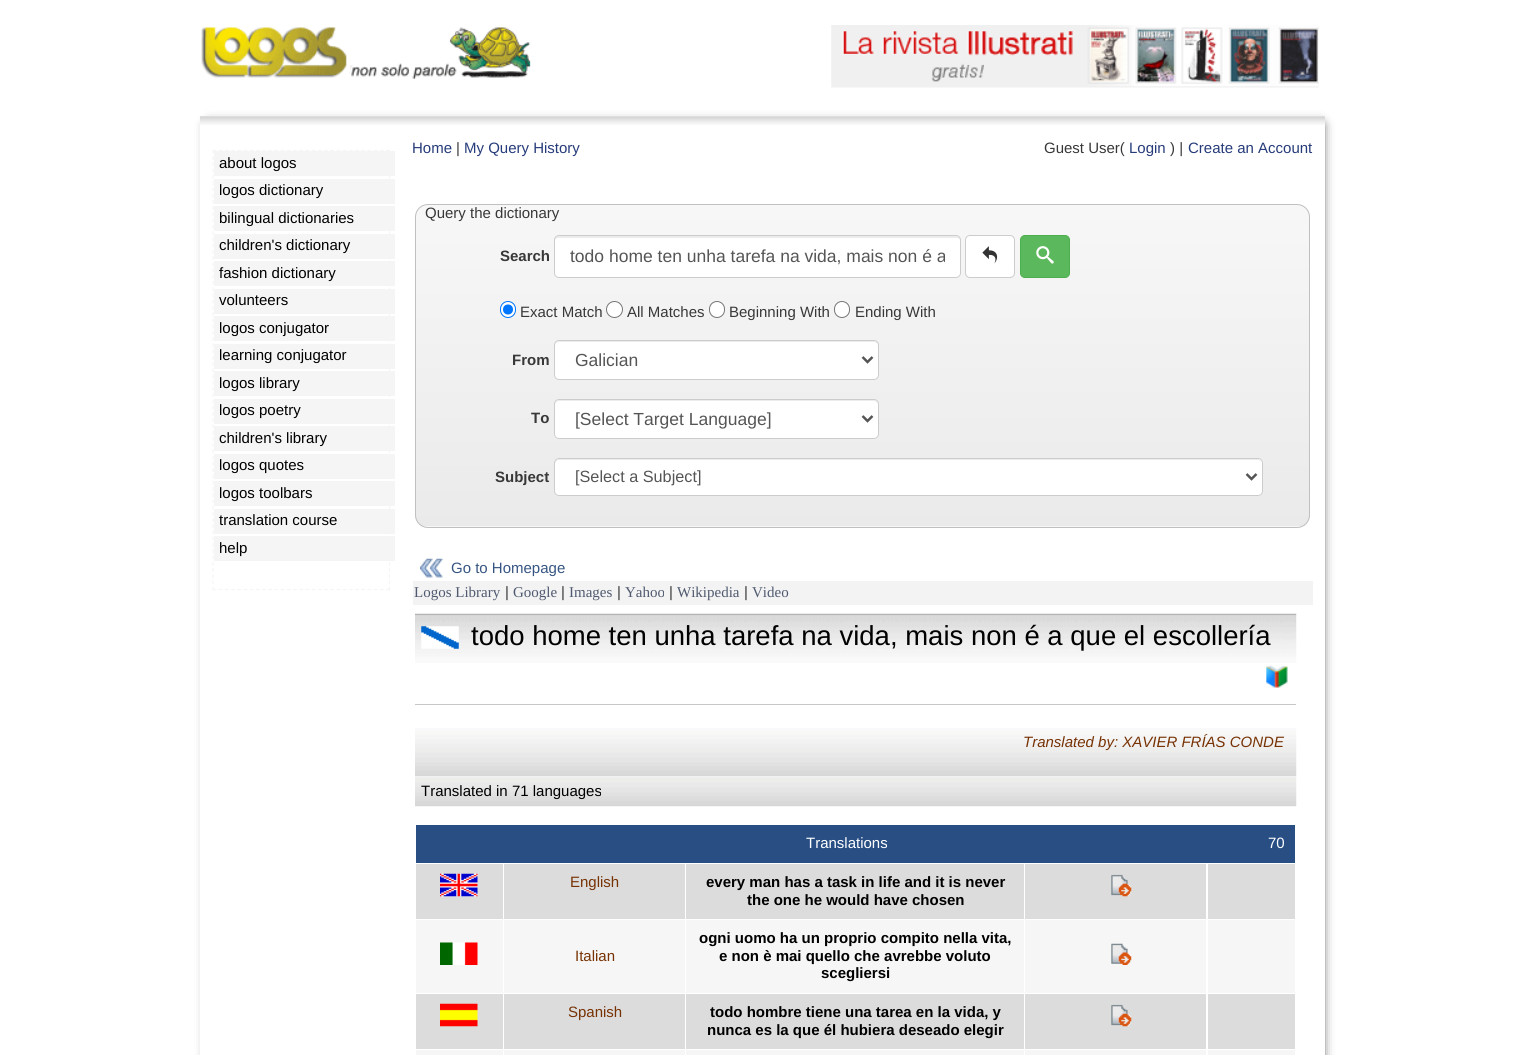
#include <cairo.h>
#include <math.h>
#include <stddef.h>

static cairo_t *c;
static void C(unsigned color){cairo_set_source_rgb(c, (color >> 16) / 255.0, (color >> 8 & 255) / 255.0, (color & 255) / 255.0);}
static void F(const char *family, double size, int italic, int bold){cairo_select_font_face(c, family, italic ? CAIRO_FONT_SLANT_ITALIC : CAIRO_FONT_SLANT_NORMAL,bold ? CAIRO_FONT_WEIGHT_BOLD : CAIRO_FONT_WEIGHT_NORMAL);cairo_set_font_size(c, size);}
static void T(double x, double y, const char *s){cairo_move_to(c, x, y);cairo_show_text(c, s);}
static void R(double x, double y, double w, double h){cairo_rectangle(c, x, y, w, h);cairo_fill(c);}
static void Q(double x, double y, double w, double h, double r){cairo_new_sub_path(c);cairo_arc(c, x + w - r, y + h - r, r, 0, M_PI / 2);cairo_arc(c, x + r, y + h - r, r, M_PI / 2, M_PI);cairo_arc(c, x + r, y + r, r, M_PI, 1.5 * M_PI);cairo_arc(c, x + w - r, y + r, r, 1.5 * M_PI, 2 * M_PI);cairo_close_path(c);}
static void S(double x, double y, double w, double h, double r, double blur, double alpha){cairo_push_group_with_content(c, CAIRO_CONTENT_ALPHA);cairo_set_operator(c, CAIRO_OPERATOR_SOURCE);for (int i = 15; i >= -15 && fmin(w, h) + blur * i / 3 > 0; i -= 2) {double e = blur * i / 6;cairo_set_source_rgba(c, 0, 0, 0, alpha * erfc((i - 1) / 8.5) / 2);Q(x - e, y - e, w + 2 * e, h + 2 * e, fmax(0, fmin(r + e + blur * .6, fmin(w, h) / 2 + e)));cairo_fill(c);}cairo_pattern_t *soft = cairo_pop_group(c);cairo_mask(c, soft);cairo_pattern_destroy(soft);}
static void I(const char *path, double x, double y, double w, double h){cairo_surface_t *image = cairo_image_surface_create_from_png(path);cairo_save(c);cairo_set_source_surface(c, image, x, y);cairo_rectangle(c, x, y, w, h);cairo_fill(c);cairo_restore(c);cairo_surface_destroy(image);}
int main(void) {
cairo_surface_t *surface = cairo_image_surface_create(CAIRO_FORMAT_RGB24, 1523, 1055);
c = cairo_create(surface);
cairo_font_options_t *options = cairo_font_options_create();
cairo_font_options_set_hint_metrics(options, CAIRO_HINT_METRICS_OFF);
cairo_font_options_set_hint_style(options, CAIRO_HINT_STYLE_NONE);
cairo_set_font_options(c, options);
cairo_set_miter_limit(c, 4);
cairo_pattern_t *gradient;
C(0xffffff);
cairo_paint(c);
I("1.png",201,27,330,52);
I("2.png",831,25,488,63);
cairo_save(c);
cairo_set_fill_rule(c,CAIRO_FILL_RULE_EVEN_ODD);
cairo_new_path(c);
cairo_move_to(c,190,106);
cairo_line_to(c,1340,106);
cairo_line_to(c,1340,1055);
cairo_line_to(c,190,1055);
cairo_close_path(c);
cairo_move_to(c,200,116);
cairo_line_to(c,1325,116);
cairo_line_to(c,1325,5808);
cairo_line_to(c,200,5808);
cairo_close_path(c);
cairo_clip(c);
C(0x000000);
S(209,125,1112,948,0,6,1);
cairo_restore(c);
I("3.png",200,116,1125,9);
cairo_new_path(c);
cairo_move_to(c,212.5,150.5);
cairo_line_to(c,390,150.5);
C(0xf5f5f5);
cairo_set_line_width(c,1.2);
cairo_set_dash(c,(double[]){3.75,2.45},2,0);
cairo_stroke(c);
cairo_new_path(c);
cairo_move_to(c,389.5,150);
cairo_line_to(c,389.5,590);
cairo_set_dash(c,(double[]){3.75,2.49},2,0);
cairo_stroke(c);
cairo_new_path(c);
cairo_move_to(c,212.5,589.5);
cairo_line_to(c,390,589.5);
cairo_set_dash(c,(double[]){3.75,2.45},2,0);
cairo_stroke(c);
cairo_new_path(c);
cairo_move_to(c,213,150);
cairo_line_to(c,213,590);
cairo_set_dash(c,(double[]){3.75,2.49},2,0);
cairo_stroke(c);
R(214,151,181,25);
F("Liberation Sans",15,0,0);
C(0x000000);
T(219,168,"about logos");
C(0xf5f5f5);
R(214,179,181,25);
C(0x000000);
T(219,195,"logos dictionary");
C(0xf5f5f5);
R(214,206,181,25);
C(0x000000);
T(219,223,"bilingual dictionaries");
C(0xf5f5f5);
R(214,234,181,25);
C(0x000000);
T(219,250,"children's dictionary");
C(0xf5f5f5);
R(214,261,181,25);
C(0x000000);
T(219,278,"fashion dictionary");
C(0xf5f5f5);
R(214,289,181,25);
C(0x000000);
T(219,305,"volunteers");
C(0xf5f5f5);
R(214,316,181,25);
C(0x000000);
T(219,333,"logos conjugator");
C(0xf5f5f5);
R(214,344,181,25);
C(0x000000);
T(219,360,"learning conjugator");
C(0xf5f5f5);
R(214,371,181,25);
C(0x000000);
T(219,388,"logos library");
C(0xf5f5f5);
R(214,399,181,25);
C(0x000000);
T(219,415,"logos poetry");
C(0xf5f5f5);
R(214,426,181,25);
C(0x000000);
T(219,443,"children's library");
C(0xf5f5f5);
R(214,454,181,25);
C(0x000000);
T(219,470,"logos quotes");
C(0xf5f5f5);
R(214,481,181,25);
C(0x000000);
T(219,498,"logos toolbars");
C(0xf5f5f5);
R(214,509,181,25);
C(0x000000);
T(219,525,"translation course");
C(0xf5f5f5);
R(214,536,181,25);
C(0x000000);
T(219,553,"help");
C(0x263b7a);
T(412,153,"Home");
C(0x383838);
T(456,153,"|");
C(0x263b7a);
T(464,153,"My Query History");
C(0x383838);
T(1044,153,"Guest User(");
C(0x263b7a);
T(1129,153,"Login");
C(0x383838);
T(1170,153,") |");
C(0x263b7a);
T(1188,153,"Create an Account");
cairo_save(c);
Q(415,204,895,324,13);
cairo_clip(c);
gradient = cairo_pattern_create_linear(863,205,863,526);
cairo_pattern_add_color_stop_rgba(gradient,0,0.969,0.969,0.969,1);
cairo_pattern_add_color_stop_rgba(gradient,1,0.918,0.918,0.918,1);
cairo_set_source(c,gradient);
cairo_pattern_destroy(gradient);
R(415,205,895,321);
gradient = cairo_pattern_create_linear(863,526,863,848);
cairo_pattern_add_color_stop_rgba(gradient,0,0.969,0.969,0.969,1);
cairo_pattern_add_color_stop_rgba(gradient,1,0.918,0.918,0.918,1);
cairo_set_source(c,gradient);
cairo_pattern_destroy(gradient);
R(415,526,895,2);
cairo_restore(c);
Q(415.5,204.5,894,323,12.5);
C(0xc0c0c0);
cairo_set_line_width(c,1);
cairo_set_dash(c,NULL,0,0);
cairo_stroke(c);
C(0x383838);
T(425,218,"Query the dictionary");
F("Liberation Sans",15,0,1);
T(500,261,"Search");
C(0xffffff);
Q(554,235,407,43,5);
cairo_fill(c);
C(0xececec);
cairo_new_path(c);
cairo_move_to(c,559,238);
cairo_line_to(c,956,238);
cairo_curve_to(c,958,238,960,239,960,241);
cairo_curve_to(c,960,238,959,236,956,236);
cairo_line_to(c,559,236);
cairo_curve_to(c,556,236,555,238,555,241);
cairo_curve_to(c,555,239,557,238,559,238);
cairo_close_path(c);
cairo_fill(c);
Q(554.5,235.5,406,42,4.5);
C(0xcccccc);
cairo_stroke(c);
cairo_save(c);
cairo_rectangle(c,570,244,375,25);
cairo_clip(c);
F("Liberation Sans",17.5,0,0);
C(0x555555);
T(570,262,"todo home ten unha tarefa na vida, mais non é a");
cairo_restore(c);
C(0xffffff);
Q(965.5,235.5,49,42,4.5);
cairo_fill_preserve(c);
C(0xcccccc);
cairo_stroke(c);
I("4.png",982,246,16,18);
C(0x5cb85c);
Q(1020.5,235.5,49,42,4.5);
cairo_fill_preserve(c);
C(0x4cae4c);
cairo_stroke(c);
I("5.png",1036,246,18,18);
C(0xffffff);
Q(500.5,301.5,15,16,7.5);
cairo_fill_preserve(c);
C(0x0075ff);
cairo_stroke(c);
cairo_arc(c,508,309.5,5,0,2 * M_PI);
cairo_fill(c);
F("Liberation Sans",15,0,0);
C(0x383838);
T(520,317,"Exact Match");
C(0xffffff);
cairo_new_path(c);
cairo_arc(c,614.5,309.5,8,0,2 * M_PI);
cairo_fill_preserve(c);
C(0x767676);
cairo_stroke(c);
C(0x383838);
T(627,317,"All Matches");
C(0xffffff);
Q(709.5,301.5,15,16,7.5);
cairo_fill_preserve(c);
C(0x767676);
cairo_stroke(c);
C(0x383838);
T(729,317,"Beginning With");
C(0xffffff);
Q(834.5,301.5,15,16,7.5);
cairo_fill_preserve(c);
C(0x767676);
cairo_stroke(c);
C(0x383838);
T(855,317,"Ending With");
F("Liberation Sans",15,0,1);
T(512,365,"From");
C(0xffffff);
Q(554,340,325,40,5);
cairo_fill(c);
C(0xececec);
cairo_new_path(c);
cairo_move_to(c,559,342);
cairo_line_to(c,874,342);
cairo_curve_to(c,876,342,878,344,878,346);
cairo_line_to(c,878,345);
cairo_curve_to(c,878,343,876,341,874,341);
cairo_line_to(c,559,341);
cairo_curve_to(c,557,341,555,343,555,345);
cairo_line_to(c,555,346);
cairo_curve_to(c,555,344,557,342,559,342);
cairo_close_path(c);
cairo_fill(c);
Q(554.5,340.5,324,39,4.5);
C(0xcccccc);
cairo_stroke(c);
cairo_new_path(c);
cairo_move_to(c,862.5,357);
cairo_line_to(c,867.5,362);
cairo_line_to(c,872.5,357);
C(0x555555);
cairo_set_line_width(c,2.5);
cairo_stroke(c);
F("Liberation Sans",17.5,0,0);
T(575,366,"Galician");
F("Liberation Sans",15,0,1);
C(0x383838);
T(531,423,"To");
C(0xffffff);
Q(554,399,325,40,5);
cairo_fill(c);
C(0xececec);
cairo_new_path(c);
cairo_move_to(c,559,401);
cairo_line_to(c,874,401);
cairo_curve_to(c,876,401,878,403,878,405);
cairo_line_to(c,878,404);
cairo_curve_to(c,878,402,876,400,874,400);
cairo_line_to(c,559,400);
cairo_curve_to(c,557,400,555,402,555,404);
cairo_line_to(c,555,405);
cairo_curve_to(c,555,403,557,401,559,401);
cairo_close_path(c);
cairo_fill(c);
Q(554.5,399.5,324,39,4.5);
C(0xcccccc);
cairo_set_line_width(c,1);
cairo_stroke(c);
cairo_new_path(c);
cairo_move_to(c,862.5,416);
cairo_line_to(c,867.5,421);
cairo_line_to(c,872.5,416);
C(0x555555);
cairo_set_line_width(c,2.5);
cairo_stroke(c);
F("Liberation Sans",17.5,0,0);
T(575,425,"[Select Target Language]");
F("Liberation Sans",15,0,1);
C(0x383838);
T(495,482,"Subject");
C(0xffffff);
Q(554,458,709,38,5);
cairo_fill(c);
C(0xececec);
cairo_new_path(c);
cairo_move_to(c,559,460);
cairo_line_to(c,1258,460);
cairo_curve_to(c,1260,460,1261,462,1261,464);
cairo_curve_to(c,1261,461,1260,459,1257,459);
cairo_line_to(c,559,459);
cairo_line_to(c,556,460);
cairo_line_to(c,555,461);
cairo_line_to(c,555,464);
cairo_curve_to(c,555,462,557,460,559,460);
cairo_close_path(c);
cairo_fill(c);
Q(554.5,458.5,708,37,4.5);
C(0xcccccc);
cairo_set_line_width(c,1);
cairo_stroke(c);
cairo_new_path(c);
cairo_move_to(c,1246.5,474);
cairo_line_to(c,1251.5,479);
cairo_line_to(c,1256.5,474);
C(0x555555);
cairo_set_line_width(c,2.5);
cairo_stroke(c);
F("Liberation Sans",16.25,0,0);
T(575,482,"[Select a Subject]");
I("6.png",420,558,23,20);
F("Liberation Sans",15,0,0);
C(0x365582);
T(451,573,"Go to Homepage");
C(0xf3f3f3);
R(413,581,900,24);
F("Liberation Serif",15,0,0);
C(0x4f596f);
T(414,597,"Logos Library");
F("Liberation Sans",15,0,0);
C(0x383838);
T(505,597,"|");
F("Liberation Serif",15,0,0);
C(0x4f596f);
T(513,597,"Google");
F("Liberation Sans",15,0,0);
C(0x383838);
T(561,597,"|");
F("Liberation Serif",15,0,0);
C(0x4f596f);
T(569,597,"Images");
F("Liberation Sans",15,0,0);
C(0x383838);
T(617,597,"|");
F("Liberation Serif",15,0,0);
C(0x4f596f);
T(625,597,"Yahoo");
F("Liberation Sans",15,0,0);
C(0x383838);
T(669,597,"|");
F("Liberation Serif",15,0,0);
C(0x4f596f);
T(677,597,"Wikipedia");
F("Liberation Sans",15,0,0);
C(0x383838);
T(744,597,"|");
F("Liberation Serif",15,0,0);
C(0x4f596f);
T(752,597,"Video");
I("7.png",415,613,882,50);
I("8.png",421,626,38,23);
F("Liberation Sans",27.5,0,0);
C(0x000000);
T(471,645,"todo home ten unha tarefa na vida, mais non é a que el escollería");
I("9.png",1266,665,22,23);
C(0xc8c8c8);
R(415,704,881,1);
I("10.png",415,728,882,49);
F("Liberation Sans",15,1,0);
C(0x773203);
T(1023,747,"Translated by: XAVIER FRÍAS CONDE");
I("11.png",415,776,882,31);
F("Liberation Sans",15,0,0);
C(0x000000);
T(421,796,"Translated in 71 languages");
C(0x284e84);
R(416,825,879,38);
C(0xffffff);
T(806,848,"Translations");
T(1268,848,"70");
C(0xdcdcdc);
R(416,864,87,55);
I("12.png",440,873,38,24);
R(504,864,181,55);
C(0x773203);
T(570,887,"English");
C(0xdcdcdc);
R(686,864,338,55);
F("Liberation Sans",15,0,1);
C(0x000000);
T(706,887,"every man has a task in life and it is never");
T(747,905,"the one he would have chosen");
C(0xdcdcdc);
R(1025,864,181,55);
I("13.png",1111,874,21,23);
R(1208,864,87,55);
C(0xf6f6f6);
R(416,920,87,73);
I("14.png",440,942,38,23);
R(504,920,181,73);
F("Liberation Sans",15,0,0);
C(0x773203);
T(575,961,"Italian");
C(0xf6f6f6);
R(686,920,338,73);
F("Liberation Sans",15,0,1);
C(0x000000);
T(699,943,"ogni uomo ha un proprio compito nella vita,");
T(719,961,"e non è mai quello che avrebbe voluto");
T(821,978,"scegliersi");
C(0xf6f6f6);
R(1025,920,181,73);
I("15.png",1111,943,21,22);
R(1208,920,87,73);
C(0xdcdcdc);
R(416,994,87,55);
I("16.png",440,1003,38,24);
R(504,994,181,55);
F("Liberation Sans",15,0,0);
C(0x773203);
T(568,1017,"Spanish");
C(0xdcdcdc);
R(686,994,338,55);
F("Liberation Sans",15,0,1);
C(0x000000);
T(710,1017,"todo hombre tiene una tarea en la vida, y");
T(707,1035,"nunca es la que él hubiera deseado elegir");
C(0xdcdcdc);
R(1025,994,181,55);
I("13.png",1111,1004,21,23);
R(1208,994,87,55);
C(0xf6f6f6);
R(416,1050,87,5);
R(504,1050,181,5);
R(686,1050,338,5);
R(1025,1050,181,5);
R(1208,1050,87,5);
cairo_surface_write_to_png(surface, "o.png");
cairo_font_options_destroy(options);
cairo_destroy(c);
cairo_surface_destroy(surface);
return 0;
}
